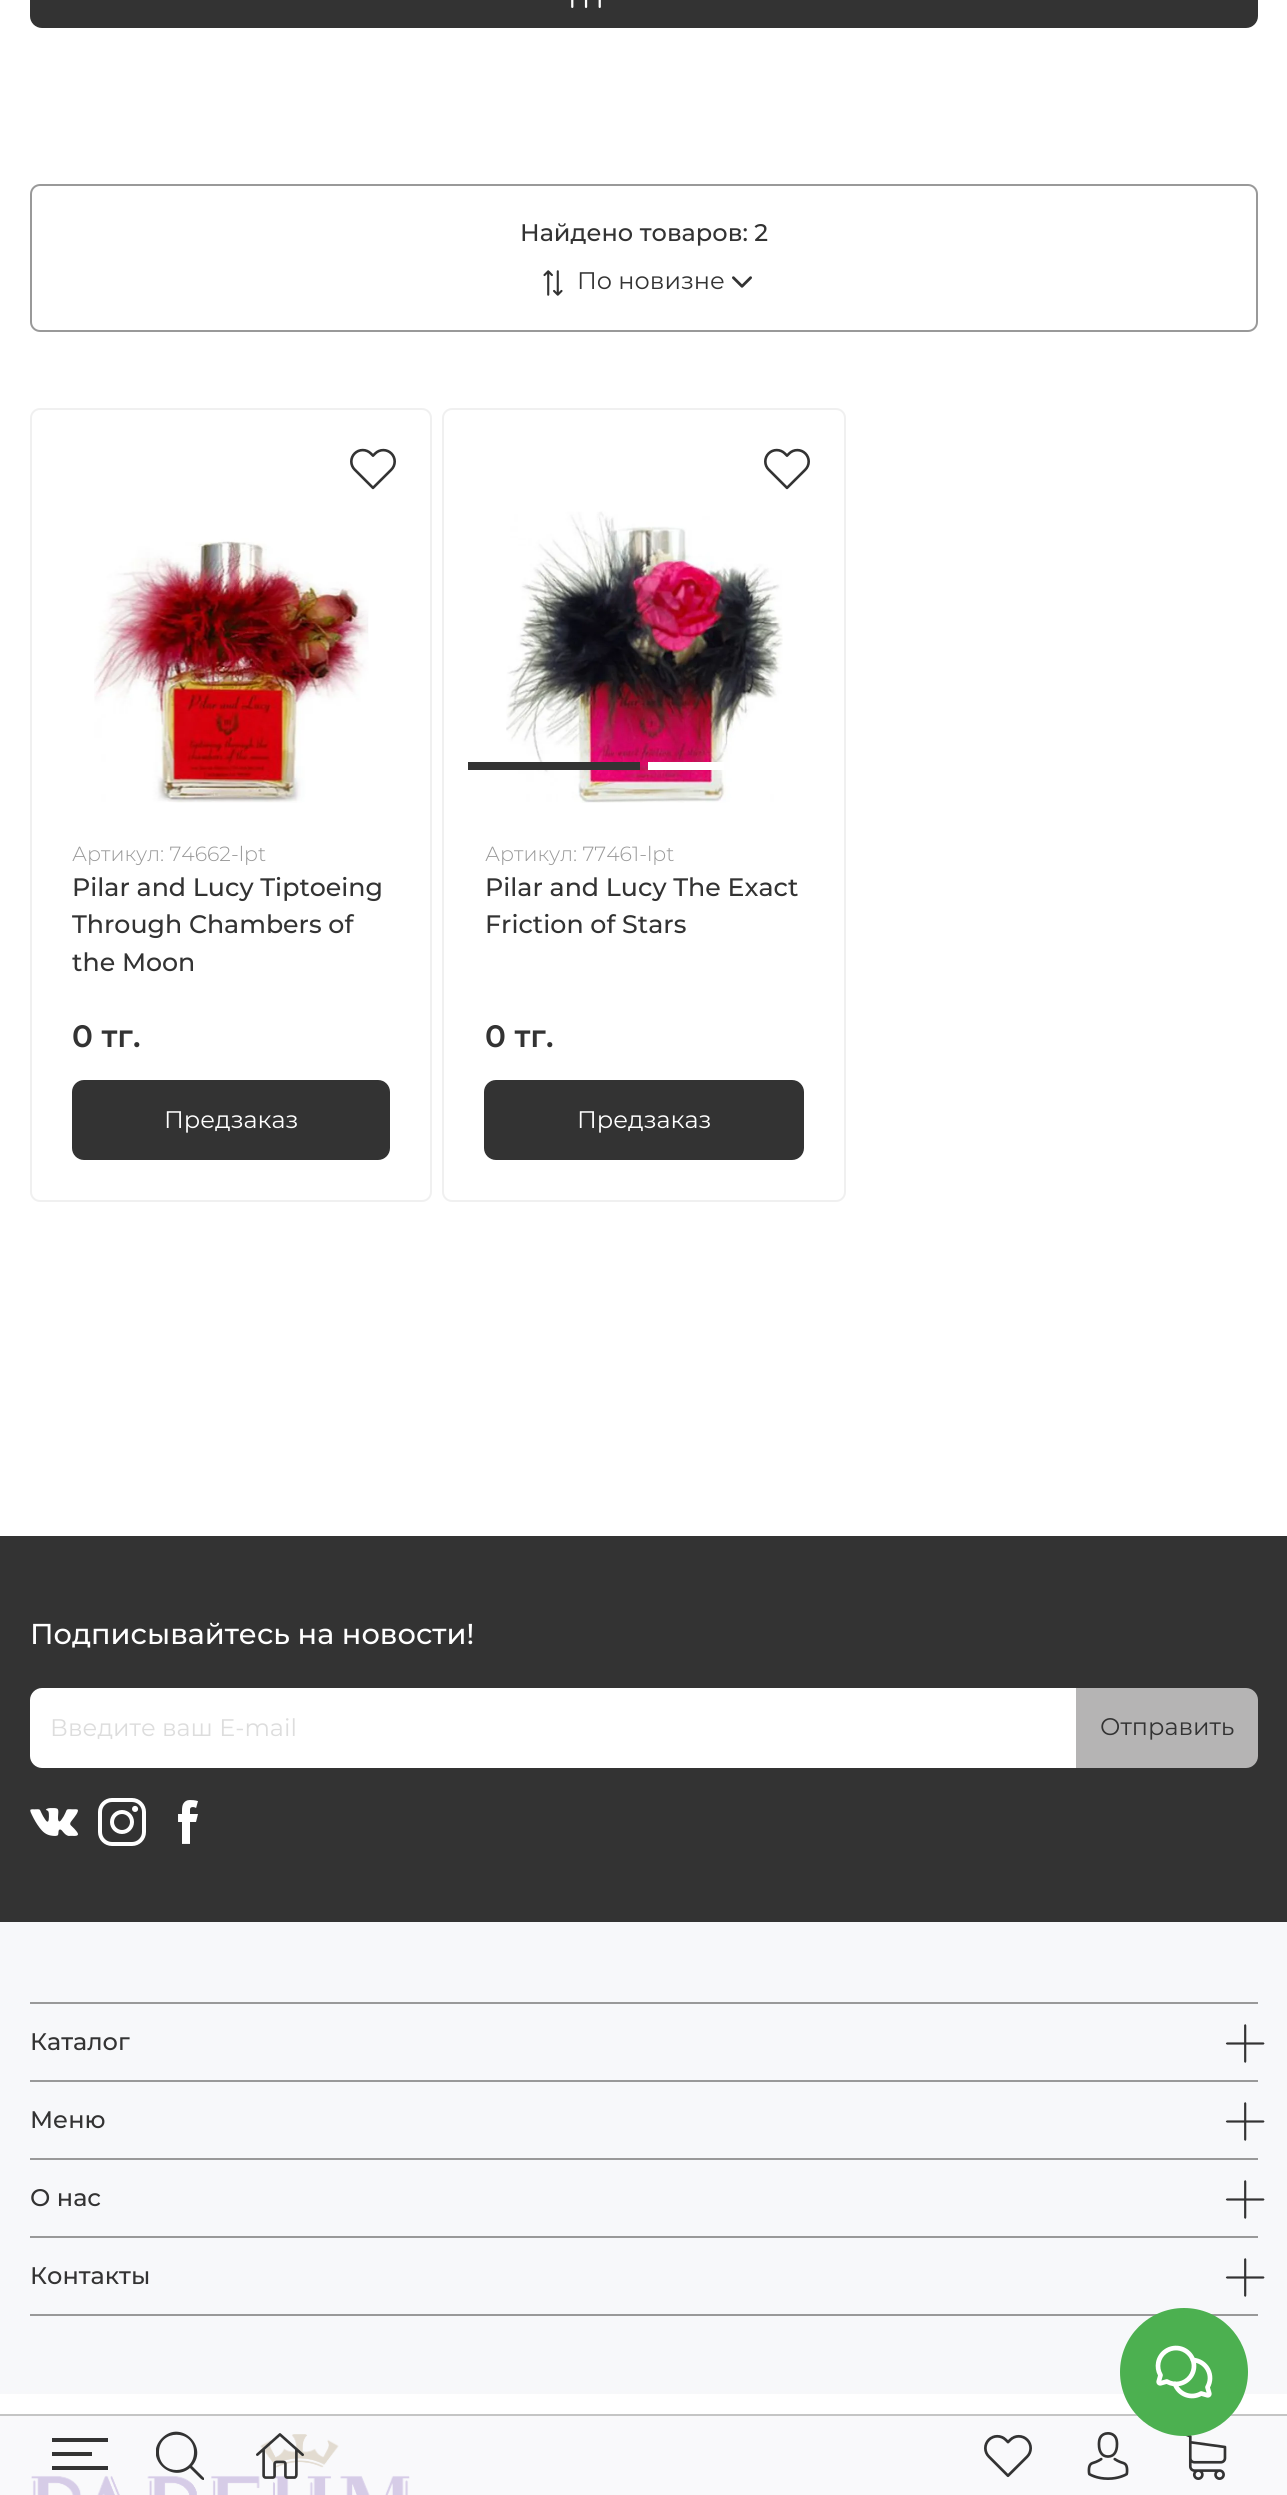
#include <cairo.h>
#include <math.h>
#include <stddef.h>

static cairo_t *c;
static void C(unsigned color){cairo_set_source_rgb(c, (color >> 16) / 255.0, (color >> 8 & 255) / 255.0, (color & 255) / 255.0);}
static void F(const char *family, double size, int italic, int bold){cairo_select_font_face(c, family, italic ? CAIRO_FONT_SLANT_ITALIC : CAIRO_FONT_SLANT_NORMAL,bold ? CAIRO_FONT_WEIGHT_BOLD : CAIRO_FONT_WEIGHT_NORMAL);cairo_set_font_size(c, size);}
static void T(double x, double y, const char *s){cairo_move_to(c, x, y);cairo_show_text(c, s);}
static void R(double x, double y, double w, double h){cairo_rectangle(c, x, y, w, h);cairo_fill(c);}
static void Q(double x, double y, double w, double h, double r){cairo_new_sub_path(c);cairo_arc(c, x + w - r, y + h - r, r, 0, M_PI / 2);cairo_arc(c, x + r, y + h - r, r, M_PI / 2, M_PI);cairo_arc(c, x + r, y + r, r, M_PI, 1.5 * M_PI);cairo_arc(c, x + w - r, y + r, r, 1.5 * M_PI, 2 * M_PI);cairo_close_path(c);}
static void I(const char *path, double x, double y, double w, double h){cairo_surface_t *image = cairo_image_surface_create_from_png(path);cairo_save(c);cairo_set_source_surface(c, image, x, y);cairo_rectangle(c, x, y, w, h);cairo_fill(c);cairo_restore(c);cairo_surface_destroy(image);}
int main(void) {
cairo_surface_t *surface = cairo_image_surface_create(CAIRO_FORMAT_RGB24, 1287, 2495);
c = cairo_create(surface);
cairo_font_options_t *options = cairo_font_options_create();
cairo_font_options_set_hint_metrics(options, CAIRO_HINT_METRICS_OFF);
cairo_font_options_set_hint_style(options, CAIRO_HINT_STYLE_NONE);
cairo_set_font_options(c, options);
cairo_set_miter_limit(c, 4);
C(0xffffff);
cairo_paint(c);
C(0xf9f9fb);
R(0,2416,1287,79);
C(0x333333);
Q(30,-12,1228,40,12);
cairo_fill(c);
I("1.png",571,0,30,8);
Q(31,185,1226,146,9);
C(0x999999);
cairo_stroke(c);
F("Montserrat Medium",24,0,0);
C(0x333333);
T(520,241,"Найдено товаров: 2");
I("2.png",543,270,20,26);
F("Montserrat",24,0,0);
T(577,289,"По новизне");
I("3.png",732,276,20,12);
Q(31,409,400,792,9);
C(0xf0f0f0);
cairo_stroke(c);
I("4.png",350,448,46,42);
I("5.png",94,510,275,293);
F("Montserrat Light",20.5,0,0);
C(0x999999);
T(72,861,"Артикул: 74662-lpt");
F("Montserrat Medium",25.25,0,0);
C(0x333333);
T(72,896,"Pilar and Lucy Tiptoeing");
T(72,933,"Through Chambers of");
T(72,971,"the Moon");
F("Montserrat SemiBold",31,0,0);
T(72,1047,"0 тг.");
Q(72,1080,318,80,12);
cairo_fill(c);
F("Montserrat",24,0,0);
C(0xffffff);
T(164,1128,"Предзаказ");
Q(443,409,402,792,9);
C(0xf0f0f0);
cairo_stroke(c);
I("4.png",764,448,46,42);
I("6.png",506,510,277,293);
C(0x333333);
R(468,762,172,8);
C(0xffffff);
R(648,762,76,8);
F("Montserrat Light",20.5,0,0);
C(0x999999);
T(485,861,"Артикул: 77461-lpt");
F("Montserrat Medium",25.25,0,0);
C(0x333333);
T(485,896,"Pilar and Lucy The Exact");
T(485,933,"Friction of Stars");
F("Montserrat SemiBold",31,0,0);
T(485,1047,"0 тг.");
Q(484,1080,320,80,12);
cairo_fill(c);
F("Montserrat",24,0,0);
C(0xffffff);
T(577,1128,"Предзаказ");
C(0x333333);
R(0,1536,1287,386);
F("Montserrat Medium",28.75,0,0);
C(0xffffff);
T(30,1644,"Подписывайтесь на новости!");
cairo_new_path(c);
cairo_move_to(c,42,1688);
cairo_line_to(c,1076,1688);
cairo_line_to(c,1076,1768);
cairo_line_to(c,42,1768);
cairo_curve_to(c,35.5,1768,30,1762.5,30,1756);
cairo_line_to(c,30,1700);
cairo_curve_to(c,30,1693.5,35.5,1688,42,1688);
cairo_close_path(c);
cairo_fill(c);
F("Montserrat",24,0,0);
C(0xdddddd);
T(50,1736,"Введите ваш E-mail");
C(0xb5b4b4);
cairo_new_path(c);
cairo_move_to(c,1076,1688);
cairo_line_to(c,1246,1688);
cairo_curve_to(c,1252.5,1688,1258,1693.5,1258,1700);
cairo_line_to(c,1258,1756);
cairo_curve_to(c,1258,1762.5,1252.5,1768,1246,1768);
cairo_line_to(c,1076,1768);
cairo_close_path(c);
cairo_fill(c);
C(0x333333);
T(1100,1735,"Отправить");
I("7.png",30,1808,48,28);
I("8.png",98,1798,48,48);
I("9.png",178,1800,20,44);
C(0xf7f8fa);
R(0,1922,1287,472);
C(0x999999);
R(30,2002,1228,2);
R(30,2080,1228,2);
F("Montserrat Medium",24,0,0);
C(0x333333);
T(30,2050,"Каталог");
I("10.png",1225,2024,40,39);
C(0x999999);
R(30,2158,1228,2);
C(0x333333);
T(30,2128,"Меню");
I("10.png",1225,2102,40,39);
C(0x999999);
R(30,2236,1228,2);
C(0x333333);
T(30,2206,"О нас");
I("10.png",1225,2180,40,39);
C(0x999999);
R(30,2314,1228,2);
C(0x333333);
T(30,2284,"Контакты");
I("10.png",1225,2258,40,39);
I("11.png",31,2434,379,61);
C(0xc5c5c5);
R(0,2414,1287,2);
C(0x333333);
R(52,2438,56,4);
R(52,2452,40,4);
R(52,2466,56,4);
cairo_save(c);
cairo_rectangle(c,156,2424,48,64);
cairo_clip(c);
cairo_new_path(c);
cairo_move_to(c,204,2478);
cairo_line_to(c,192,2466);
cairo_curve_to(c,209,2447,181,2419,162,2438);
cairo_curve_to(c,143,2457,171,2484,190,2468);
cairo_line_to(c,200,2478);
cairo_curve_to(c,204,2482,205,2479,204,2478);
cairo_close_path(c);
cairo_move_to(c,159,2452);
cairo_curve_to(c,159,2429,194,2429,194,2452);
cairo_curve_to(c,194,2476,159,2476,159,2452);
cairo_close_path(c);
cairo_fill(c);
cairo_restore(c);
I("12.png",256,2433,48,46);
I("13.png",984,2434,48,44);
I("14.png",1087,2432,42,48);
I("15.png",1185,2435,42,45);
C(0x4cb050);
cairo_arc(c,1184,2372,64,0,2 * M_PI);
cairo_fill(c);
I("16.png",1155,2345,58,54);
cairo_surface_write_to_png(surface, "o.png");
cairo_font_options_destroy(options);
cairo_destroy(c);
cairo_surface_destroy(surface);
return 0;
}
